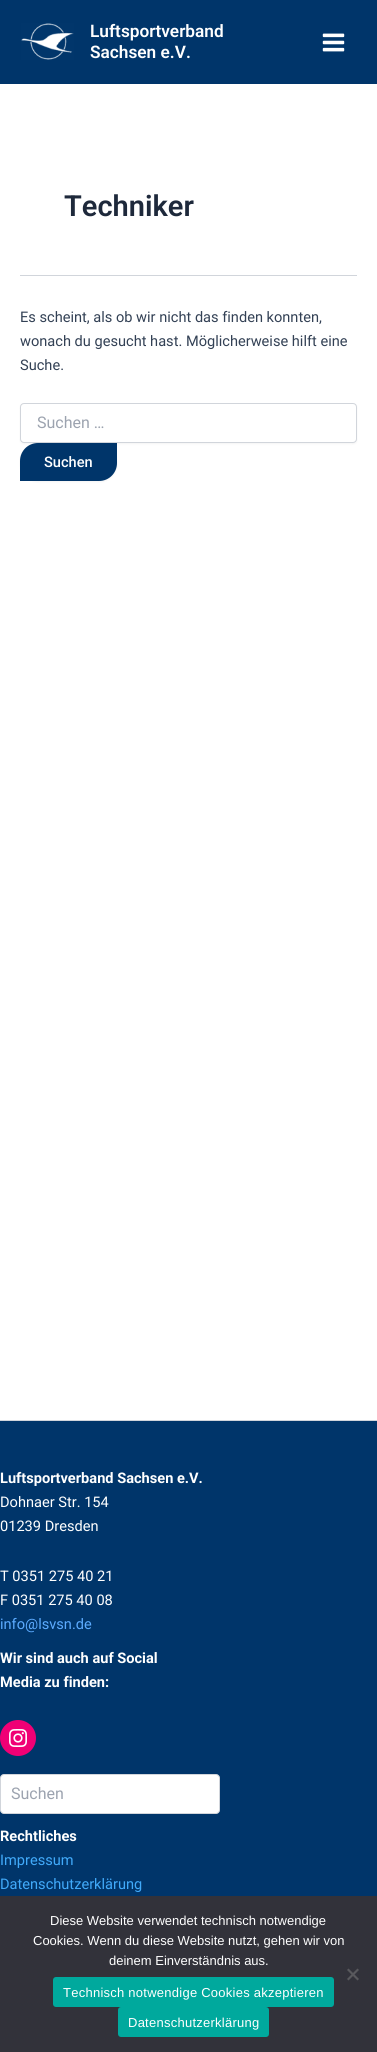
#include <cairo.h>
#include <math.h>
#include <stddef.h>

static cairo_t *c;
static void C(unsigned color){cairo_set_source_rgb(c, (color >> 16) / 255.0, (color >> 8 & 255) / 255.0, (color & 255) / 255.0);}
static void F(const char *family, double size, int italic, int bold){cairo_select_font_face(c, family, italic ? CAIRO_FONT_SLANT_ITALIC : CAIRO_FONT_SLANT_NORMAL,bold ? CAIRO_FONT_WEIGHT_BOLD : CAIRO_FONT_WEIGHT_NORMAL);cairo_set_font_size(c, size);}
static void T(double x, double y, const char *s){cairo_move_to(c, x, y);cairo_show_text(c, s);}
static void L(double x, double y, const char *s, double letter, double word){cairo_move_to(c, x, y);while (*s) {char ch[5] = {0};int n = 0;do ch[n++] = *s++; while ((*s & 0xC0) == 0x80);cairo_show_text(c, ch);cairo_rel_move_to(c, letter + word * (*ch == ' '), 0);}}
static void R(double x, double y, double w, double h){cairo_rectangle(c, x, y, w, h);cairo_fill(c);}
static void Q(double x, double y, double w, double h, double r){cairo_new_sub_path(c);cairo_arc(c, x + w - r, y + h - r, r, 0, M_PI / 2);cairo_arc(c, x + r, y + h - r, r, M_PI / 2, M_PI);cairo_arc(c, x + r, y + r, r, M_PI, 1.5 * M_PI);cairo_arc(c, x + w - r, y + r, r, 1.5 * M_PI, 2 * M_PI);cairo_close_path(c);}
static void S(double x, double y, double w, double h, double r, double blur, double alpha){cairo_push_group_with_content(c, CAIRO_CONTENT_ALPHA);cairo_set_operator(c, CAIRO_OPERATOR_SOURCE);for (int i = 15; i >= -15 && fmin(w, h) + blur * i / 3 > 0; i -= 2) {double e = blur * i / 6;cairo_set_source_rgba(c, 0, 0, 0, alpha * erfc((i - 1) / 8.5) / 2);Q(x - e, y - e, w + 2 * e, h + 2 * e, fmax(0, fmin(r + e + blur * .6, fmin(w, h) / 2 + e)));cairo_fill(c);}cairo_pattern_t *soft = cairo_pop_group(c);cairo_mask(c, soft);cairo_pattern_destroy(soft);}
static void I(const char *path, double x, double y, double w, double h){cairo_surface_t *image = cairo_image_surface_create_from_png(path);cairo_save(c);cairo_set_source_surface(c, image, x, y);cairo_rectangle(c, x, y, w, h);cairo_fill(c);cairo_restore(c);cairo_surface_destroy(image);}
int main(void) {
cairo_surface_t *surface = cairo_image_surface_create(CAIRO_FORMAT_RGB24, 377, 2052);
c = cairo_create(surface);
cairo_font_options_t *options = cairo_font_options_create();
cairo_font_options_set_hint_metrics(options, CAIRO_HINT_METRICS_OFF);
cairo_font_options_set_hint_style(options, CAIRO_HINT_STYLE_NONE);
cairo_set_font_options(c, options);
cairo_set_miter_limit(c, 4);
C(0xffffff);
cairo_paint(c);
C(0x00356a);
R(0,0,377,84);
I("1.png",21,23,53,37);
F("Roboto SemiBold",17.25,0,0);
C(0xffffff);
T(90,37,"Luftsportverband");
T(90,58,"Sachsen e.V.");
I("2.png",322,33,23,19);
C(0xd1d5db);
R(20,275,337,1);
F("Roboto SemiBold",29,0,0);
C(0x1e293b);
T(64,216,"Techniker");
F("Roboto",14.6,0,0);
C(0x334155);
T(20,322,"Es scheint, als ob wir nicht das finden konnten,");
T(20,346,"wonach du gesucht hast. Möglicherweise hilft eine");
T(20,370,"Suche.");
C(0x000000);
S(20,404,337,40,4,1,.05);
C(0xffffff);
Q(20.5,403.5,336,39,3.5);
cairo_fill_preserve(c);
C(0xd1d5db);
cairo_set_line_width(c,1);
cairo_stroke(c);
F("Roboto",16,0,0);
C(0x9ca3af);
T(37,428,"Suchen …");
C(0x000000);
S(20,444,97,38,18,1,.05);
C(0x00356a);
cairo_new_path(c);
cairo_move_to(c,38,443);
cairo_line_to(c,117,443);
cairo_line_to(c,117,463);
cairo_curve_to(c,117,473,109,481,99,481);
cairo_line_to(c,20,481);
cairo_line_to(c,20,461);
cairo_curve_to(c,20,451,28,443,38,443);
cairo_close_path(c);
cairo_fill(c);
F("Roboto Medium",14.6,0,0);
C(0xffffff);
T(44,467,"Suchen");
C(0x00356a);
R(0,1421,377,475);
C(0xd1d5db);
R(0,1420,377,1);
F("Roboto",14.6,0,1);
C(0xffffff);
T(0,1483,"Luftsportverband Sachsen e.V.");
F("Roboto",14.6,0,0);
T(0,1507,"Dohnaer Str. 154");
T(0,1531,"01239 Dresden");
T(0,1581,"T 0351 275 40 21");
T(0,1605,"F 0351 275 40 08");
C(0x5cabff);
T(0,1629,"info@lsvsn.de");
F("Roboto",14.6,0,1);
C(0xffffff);
T(0,1663,"Wir sind auch auf Social");
T(0,1687,"Media zu finden:");
C(0xf00075);
cairo_new_path(c);
cairo_arc(c,18,1738,18,0,2 * M_PI);
cairo_fill(c);
I("3.png",9,1729,18,18);
C(0xffffff);
Q(.5,1774.5,219,39,3.5);
cairo_fill_preserve(c);
C(0xd1d5db);
cairo_stroke(c);
F("Roboto",16,0,0);
C(0x9ca3af);
T(11,1799,"Suchen");
F("Roboto",14.6,0,1);
C(0xffffff);
T(0,1841,"Rechtliches");
F("Roboto",14.6,0,0);
C(0x41aafa);
T(0,1865,"Impressum");
T(0,1889,"Datenschutzerklärung");
C(0x32323a);
R(0,1896,377,156);
F("Liberation Sans",13,0,0);
C(0xffffff);
T(50,1925,"Diese Website verwendet technisch notwendige");
T(33,1945,"Cookies. Wenn du diese Website nutzt, gehen wir von");
T(109,1965,"deinem Einverständnis aus.");
C(0x59595d);
cairo_new_path(c);
cairo_move_to(c,357.5,1968.5);
cairo_line_to(c,359,1970);
cairo_line_to(c,348.5,1980.5);
cairo_line_to(c,347,1979);
cairo_close_path(c);
cairo_fill(c);
cairo_new_path(c);
cairo_move_to(c,347,1970);
cairo_line_to(c,348.5,1968.5);
cairo_line_to(c,359,1979);
cairo_line_to(c,357.5,1980.5);
cairo_close_path(c);
cairo_fill(c);
C(0x00a99d);
Q(53,1977,281,30,3);
cairo_fill(c);
C(0xffffff);
L(63,1997,"Technisch notwendige Cookies akzeptieren",.25,0);
C(0x00a99d);
Q(118,2007,151,30,3);
cairo_fill(c);
C(0xffffff);
L(128,2027,"Datenschutzerklärung",.25,0);
cairo_surface_write_to_png(surface, "o.png");
cairo_font_options_destroy(options);
cairo_destroy(c);
cairo_surface_destroy(surface);
return 0;
}
